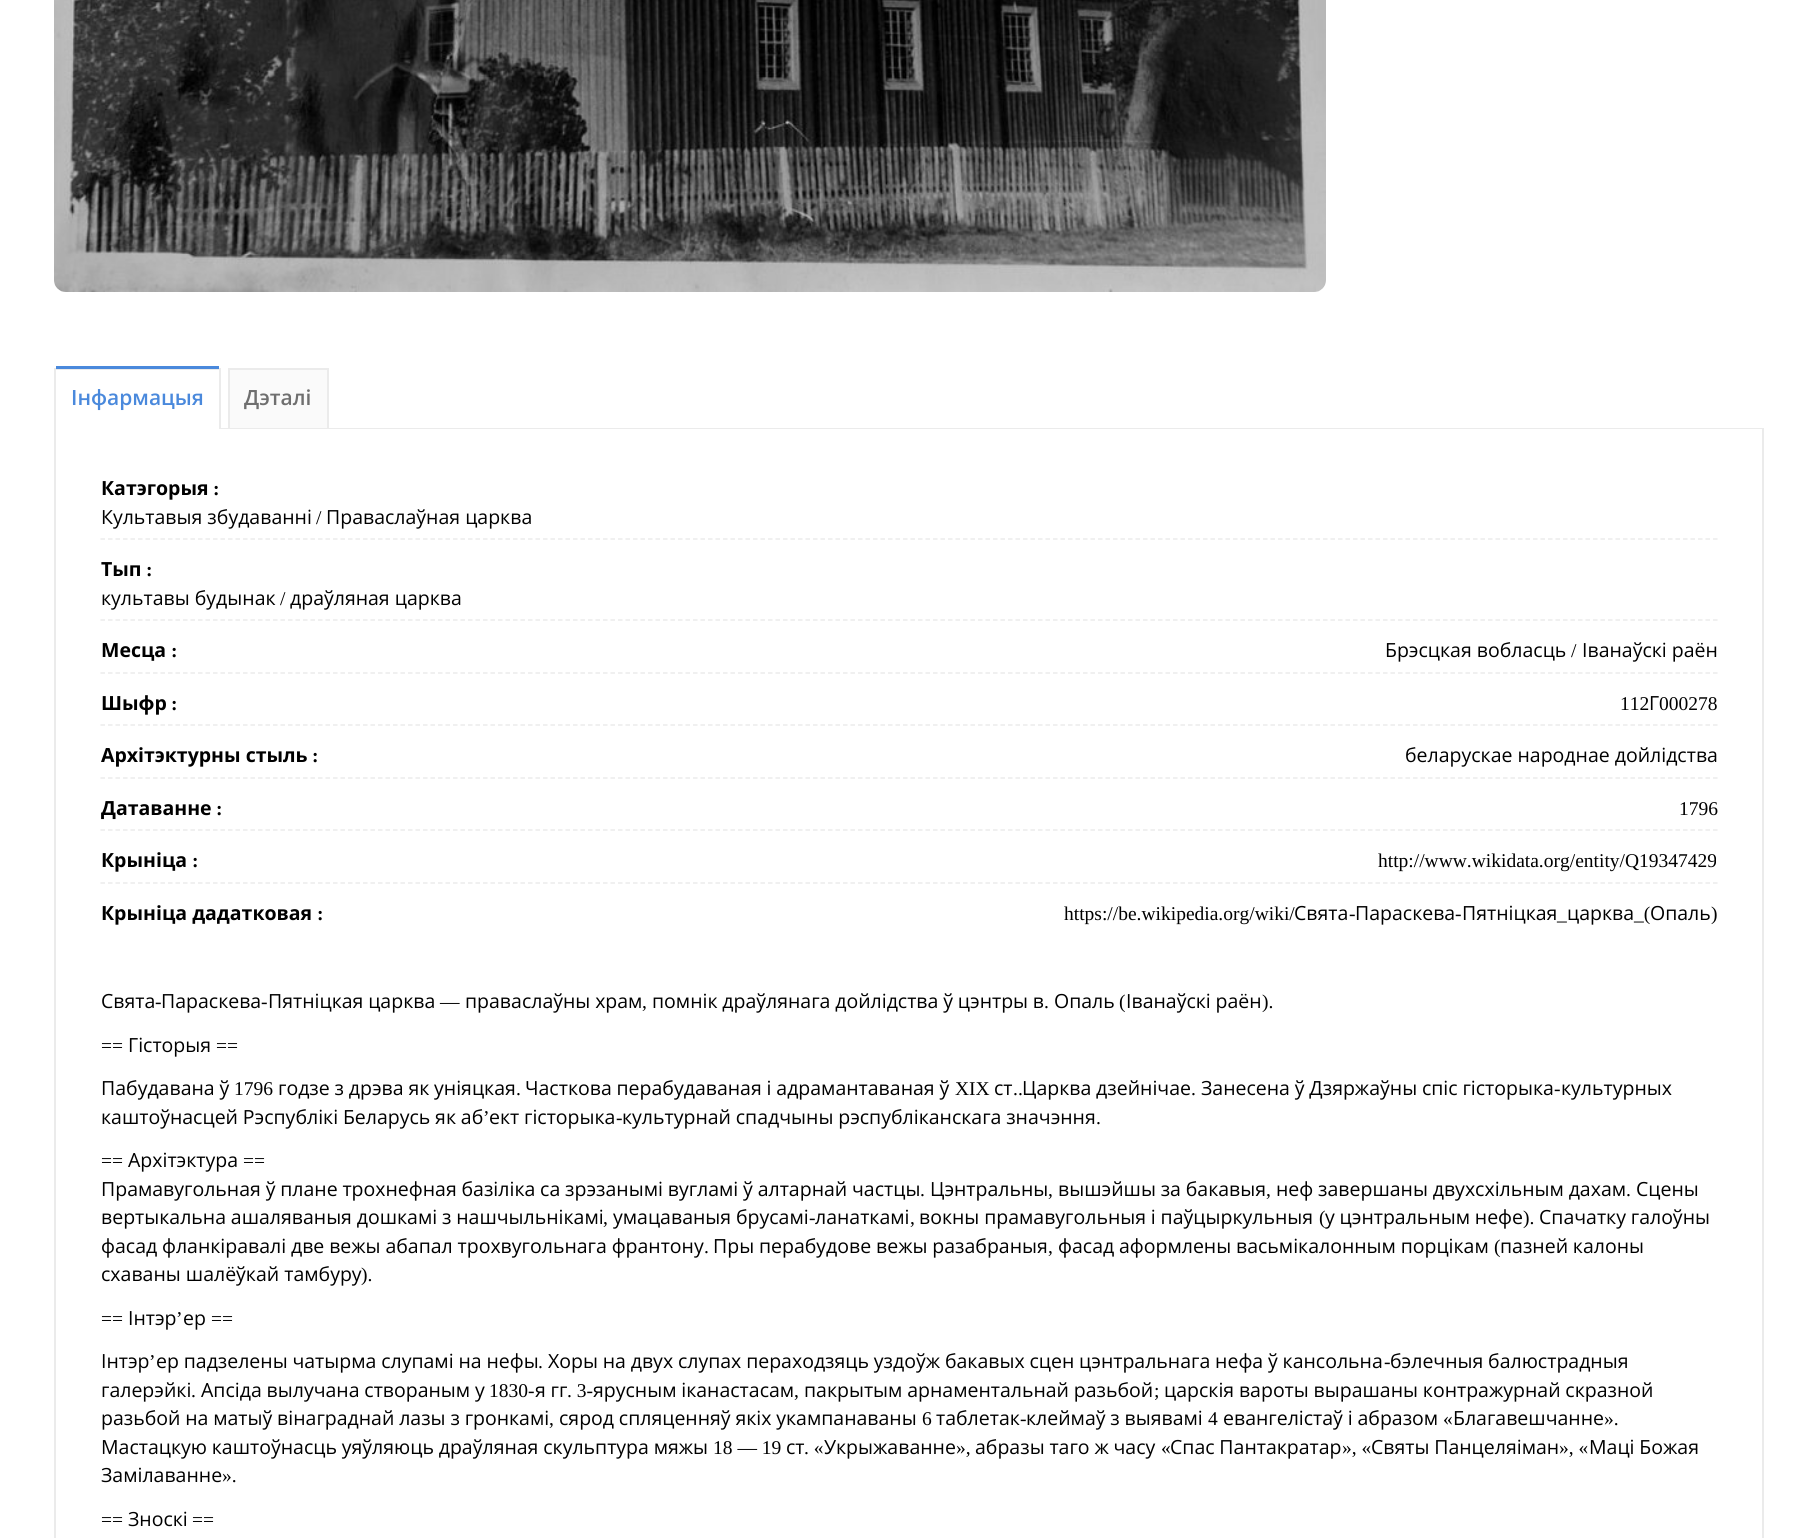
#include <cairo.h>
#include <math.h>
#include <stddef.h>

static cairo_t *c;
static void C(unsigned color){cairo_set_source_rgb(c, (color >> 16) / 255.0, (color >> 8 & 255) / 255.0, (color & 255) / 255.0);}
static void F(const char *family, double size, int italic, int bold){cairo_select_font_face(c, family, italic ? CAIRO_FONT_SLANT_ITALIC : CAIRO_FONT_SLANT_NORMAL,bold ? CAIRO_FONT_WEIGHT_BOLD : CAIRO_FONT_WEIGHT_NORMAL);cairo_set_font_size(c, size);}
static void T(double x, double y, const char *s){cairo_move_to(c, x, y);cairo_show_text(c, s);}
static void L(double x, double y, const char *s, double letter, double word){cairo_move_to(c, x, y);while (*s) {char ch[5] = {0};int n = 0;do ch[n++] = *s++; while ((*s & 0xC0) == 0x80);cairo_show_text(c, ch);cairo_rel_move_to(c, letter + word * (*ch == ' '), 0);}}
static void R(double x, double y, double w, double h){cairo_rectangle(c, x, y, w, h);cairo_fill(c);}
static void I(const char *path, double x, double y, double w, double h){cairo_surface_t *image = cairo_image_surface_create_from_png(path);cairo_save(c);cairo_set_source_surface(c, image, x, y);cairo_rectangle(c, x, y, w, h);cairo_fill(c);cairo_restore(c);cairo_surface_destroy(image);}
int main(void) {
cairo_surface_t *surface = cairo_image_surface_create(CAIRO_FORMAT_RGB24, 1817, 1538);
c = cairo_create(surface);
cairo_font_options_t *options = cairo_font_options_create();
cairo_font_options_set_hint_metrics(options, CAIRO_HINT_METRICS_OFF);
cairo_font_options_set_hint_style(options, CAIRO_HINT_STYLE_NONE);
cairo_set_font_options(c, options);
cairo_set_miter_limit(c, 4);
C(0xffffff);
cairo_paint(c);
I("1.png",54,0,1272,292);
C(0xebebeb);
R(54,428,1710,1);
R(54,369,167,1);
R(219,368,2,60);
R(54,368,2,60);
C(0x4a89dc);
R(56,366,163,3);
F("Open Sans SemiBold",21,0,0);
T(71,405,"Інфармацыя");
C(0xffffff);
R(56,428,163,1);
C(0xfafafa);
R(230,370,97,58);
C(0xebebeb);
R(228,368,101,2);
R(327,368,2,60);
R(228,368,2,60);
C(0x6f6f6f);
T(244,405,"Дэталі");
C(0xebebeb);
cairo_set_fill_rule(c,CAIRO_FILL_RULE_EVEN_ODD);
cairo_new_path(c);
cairo_move_to(c,54,429);
cairo_line_to(c,1764,429);
cairo_line_to(c,1764,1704);
cairo_curve_to(c,1764,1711,1759,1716,1752,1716);
cairo_line_to(c,66,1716);
cairo_curve_to(c,59,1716,54,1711,54,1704);
cairo_close_path(c);
cairo_move_to(c,56,429);
cairo_line_to(c,1762,429);
cairo_line_to(c,1762,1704);
cairo_curve_to(c,1762,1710,1758,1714,1752,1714);
cairo_line_to(c,66,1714);
cairo_curve_to(c,60,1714,56,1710,56,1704);
cairo_close_path(c);
cairo_fill(c);
cairo_new_path(c);
cairo_move_to(c,100.5,539);
cairo_line_to(c,1717.5,539);
cairo_set_line_width(c,1.5);
cairo_set_dash(c,(double[]){4.5,3},2,0);
cairo_stroke(c);
F("Open Sans",19.5,0,1);
C(0x000000);
T(101,495,"Катэгорыя");
F("Liberation Serif",19.5,0,1);
T(213,495,":");
F("Open Sans",19.5,0,0);
T(101,524,"Культавыя збудаванні");
F("Liberation Serif",19.5,0,0);
T(316,524,"/");
F("Open Sans",19.5,0,0);
T(326,524,"Праваслаўная царква");
cairo_new_path(c);
cairo_move_to(c,100.5,620);
cairo_line_to(c,1717.5,620);
C(0xebebeb);
cairo_stroke(c);
F("Open Sans",19.5,0,1);
C(0x000000);
T(101,576,"Тып");
F("Liberation Serif",19.5,0,1);
T(146,576,":");
F("Open Sans",19.5,0,0);
T(101,605,"культавы будынак");
F("Liberation Serif",19.5,0,0);
T(280,605,"/");
F("Open Sans",19.5,0,0);
T(290,605,"драўляная царква");
cairo_new_path(c);
cairo_move_to(c,100.5,673);
cairo_line_to(c,1717.5,673);
C(0xebebeb);
cairo_stroke(c);
F("Open Sans",19.5,0,1);
C(0x000000);
T(101,657,"Месца");
F("Liberation Serif",19.5,0,1);
T(171,657,":");
F("Open Sans",19.5,0,0);
T(1385,657,"Брэсцкая вобласць");
F("Liberation Serif",19.5,0,0);
T(1571,657,"/");
F("Open Sans",19.5,0,0);
T(1582,657,"Іванаўскі раён");
cairo_new_path(c);
cairo_move_to(c,100.5,725);
cairo_line_to(c,1717.5,725);
C(0xebebeb);
cairo_stroke(c);
F("Open Sans",19.5,0,1);
C(0x000000);
T(101,710,"Шыфр");
F("Liberation Serif",19.5,0,1);
T(171,710,":");
F("Liberation Serif",19.5,0,0);
T(1620,710,"112");
F("Open Sans",19.5,0,0);
T(1649,710,"Г");
F("Liberation Serif",19.5,0,0);
T(1659,710,"000278");
cairo_new_path(c);
cairo_move_to(c,100.5,778);
cairo_line_to(c,1717.5,778);
C(0xebebeb);
cairo_stroke(c);
F("Open Sans",19.5,0,1);
C(0x000000);
T(101,762,"Архітэктурны стыль");
F("Liberation Serif",19.5,0,1);
T(312,762,":");
F("Open Sans",19.5,0,0);
T(1405,762,"беларускае народнае дойлідства");
cairo_new_path(c);
cairo_move_to(c,100.5,830);
cairo_line_to(c,1717.5,830);
C(0xebebeb);
cairo_stroke(c);
F("Open Sans",19.5,0,1);
C(0x000000);
T(101,815,"Датаванне");
F("Liberation Serif",19.5,0,1);
T(216,815,":");
F("Liberation Serif",19.5,0,0);
T(1679,815,"1796");
cairo_new_path(c);
cairo_move_to(c,100.5,883);
cairo_line_to(c,1717.5,883);
C(0xebebeb);
cairo_stroke(c);
F("Open Sans",19.5,0,1);
C(0x000000);
T(101,867,"Крыніца");
F("Liberation Serif",19.5,0,1);
T(192,867,":");
F("Liberation Serif",19.5,0,0);
T(1378,867,"http://www.wikidata.org/entity/Q19347429");
F("Open Sans",19.5,0,1);
T(101,920,"Крыніца дадатковая");
F("Liberation Serif",19.5,0,1);
T(317,920,":");
F("Liberation Serif",19.5,0,0);
T(1064,920,"https://be.wikipedia.org/wiki/");
F("Open Sans",19.5,0,0);
T(1294,920,"Свята");
F("Liberation Serif",19.5,0,0);
T(1349,920,"-");
F("Open Sans",19.5,0,0);
T(1355,920,"Параскева");
F("Liberation Serif",19.5,0,0);
T(1455,920,"-");
F("Open Sans",19.5,0,0);
T(1462,920,"Пятніцкая");
T(1567,920,"царква");
F("Liberation Serif",19.5,0,0);
T(1634,920,"_(");
F("Open Sans",19.5,0,0);
T(1650,920,"Опаль");
F("Liberation Serif",19.5,0,0);
T(1711,920,")");
T(1557,920,"_");
F("Open Sans",19.5,0,0);
T(101,1008,"Свята");
F("Liberation Serif",19.5,0,0);
T(155,1008,"-");
F("Open Sans",19.5,0,0);
T(161,1008,"Параскева");
F("Liberation Serif",19.5,0,0);
T(261,1008,"-");
F("Open Sans",19.5,0,0);
L(268,1008,"Пятніцкая царква",0,-.25);
F("Liberation Serif",19.5,0,0);
T(440,1008,"—");
F("Open Sans",19.5,0,0);
L(465,1008,"праваслаўны храм",0,-.25);
L(652,1008,"помнік драўлянага дойлідства ў цэнтры в",0,-.25);
T(1054,1008,"Опаль");
F("Liberation Serif",19.5,0,0);
T(1119,1008,"(");
F("Open Sans",19.5,0,0);
L(1126,1008,"Іванаўскі раён",0,-.25);
F("Liberation Serif",19.5,0,0);
T(1262,1008,").");
T(642,1008,",");
T(1044,1008,".");
T(101,1052,"==");
F("Open Sans",19.5,0,0);
T(128,1052,"Гісторыя");
F("Liberation Serif",19.5,0,0);
T(216,1052,"==");
F("Open Sans",19.5,0,0);
L(101,1095,"Пабудавана ў",0,-.25);
F("Liberation Serif",19.5,0,0);
T(234,1095,"1796");
F("Open Sans",19.5,0,0);
L(278,1095,"годзе з дрэва як уніяцкая",0,-.25);
L(525,1095,"Часткова перабудаваная і адрамантаваная ў",0,-.25);
F("Liberation Serif",19.5,0,0);
T(955,1095,"XIX");
F("Open Sans",19.5,0,0);
T(994,1095,"ст");
L(1022,1095,"Царква дзейнічае",0,-.25);
L(1201,1095,"Занесена ў Дзяржаўны спіс гісторыка",0,-.25);
F("Liberation Serif",19.5,0,0);
T(1554,1095,"-");
F("Open Sans",19.5,0,0);
T(1561,1095,"культурных");
F("Liberation Serif",19.5,0,0);
T(516,1095,".");
T(1013,1095,"..");
T(1191,1095,".");
F("Open Sans",19.5,0,0);
L(101,1124,"каштоўнасцей Рэспублікі Беларусь як аб",0,-.25);
F("Liberation Serif",19.5,0,0);
T(483,1124,"’");
F("Open Sans",19.5,0,0);
L(489,1124,"ект гісторыка",0,-.25);
L(622,1124,"культурнай спадчыны рэспубліканскага значэння",0,-.25);
F("Liberation Serif",19.5,0,0);
T(616,1124,"-");
T(1096,1124,".");
T(101,1167,"==");
F("Open Sans",19.5,0,0);
T(128,1167,"Архітэктура");
F("Liberation Serif",19.5,0,0);
T(243,1167,"==");
F("Open Sans",19.5,0,0);
L(101,1196,"Прамавугольная ў плане трохнефная базіліка са зрэзанымі вугламі ў алтарнай частцы",0,-.25);
F("Liberation Serif",19.5,0,0);
T(920,1196,".");
F("Open Sans",19.5,0,0);
T(930,1196,"Цэнтральны");
F("Liberation Serif",19.5,0,0);
T(1048,1196,",");
F("Open Sans",19.5,0,0);
L(1058,1196,"вышэйшы за бакавыя",0,-.25);
F("Liberation Serif",19.5,0,0);
T(1266,1196,",");
F("Open Sans",19.5,0,0);
L(1276,1196,"неф завершаны двухсхільным дахам",0,-.25);
F("Liberation Serif",19.5,0,0);
T(1626,1196,".");
F("Open Sans",19.5,0,0);
T(1636,1196,"Сцены");
L(101,1224,"вертыкальна ашаляваныя дошкамі з нашчыльнікамі",0,-.25);
L(613,1224,"умацаваныя брусамі",0,-.25);
F("Liberation Serif",19.5,0,0);
T(809,1224,"-");
F("Open Sans",19.5,0,0);
T(815,1224,"ланаткамі");
L(919,1224,"вокны прамавугольныя і паўцыркульныя",0,-.25);
F("Liberation Serif",19.5,0,0);
T(1319,1224,"(");
F("Open Sans",19.5,0,0);
L(1325,1224,"у цэнтральным нефе",0,-.25);
F("Liberation Serif",19.5,0,0);
T(1523,1224,").");
F("Open Sans",19.5,0,0);
L(1539,1224,"Спачатку галоўны",0,-.25);
F("Liberation Serif",19.5,0,0);
T(603,1224,",");
T(910,1224,",");
F("Open Sans",19.5,0,0);
L(101,1253,"фасад фланкіравалі две вежы абапал трохвугольнага франтону",0,-.25);
F("Liberation Serif",19.5,0,0);
T(704,1253,".");
F("Open Sans",19.5,0,0);
L(713,1253,"Пры перабудове вежы разабраныя",0,-.25);
F("Liberation Serif",19.5,0,0);
T(1048,1253,",");
F("Open Sans",19.5,0,0);
L(1058,1253,"фасад аформлены васьмікалонным порцікам",0,-.25);
F("Liberation Serif",19.5,0,0);
T(1494,1253,"(");
F("Open Sans",19.5,0,0);
L(1500,1253,"пазней калоны",0,-.25);
T(101,1281,"схаваны шалёўкай тамбуру");
F("Liberation Serif",19.5,0,0);
T(361,1281,").");
T(101,1325,"==");
F("Open Sans",19.5,0,0);
T(128,1325,"Інтэр");
F("Liberation Serif",19.5,0,0);
T(176,1325,"’");
F("Open Sans",19.5,0,0);
T(183,1325,"ер");
F("Liberation Serif",19.5,0,0);
T(211,1325,"==");
F("Open Sans",19.5,0,0);
T(101,1368,"Інтэр");
F("Liberation Serif",19.5,0,0);
T(149,1368,"’");
F("Open Sans",19.5,0,0);
L(156,1368,"ер падзелены чатырма слупамі на нефы",0,-.25);
L(548,1368,"Хоры на двух слупах пераходзяць уздоўж бакавых сцен цэнтральнага нефа ў кансольна",0,-.25);
L(1390,1368,"бэлечныя балюстрадныя",0,-.25);
F("Liberation Serif",19.5,0,0);
T(1384,1368,"-");
T(538,1368,".");
F("Open Sans",19.5,0,0);
T(101,1397,"галерэйкі");
F("Liberation Serif",19.5,0,0);
T(191,1397,".");
F("Open Sans",19.5,0,0);
L(201,1397,"Апсіда вылучана створаным у",0,-.25);
F("Liberation Serif",19.5,0,0);
T(489,1397,"1830-");
F("Open Sans",19.5,0,0);
L(535,1397,"я гг",0,-.25);
F("Liberation Serif",19.5,0,0);
T(567,1397,". 3-");
F("Open Sans",19.5,0,0);
L(593,1397,"ярусным іканастасам",0,-.25);
F("Liberation Serif",19.5,0,0);
T(794,1397,",");
F("Open Sans",19.5,0,0);
L(804,1397,"пакрытым арнаментальнай разьбой",0,-.25);
F("Liberation Serif",19.5,0,0);
T(1154,1397,";");
F("Open Sans",19.5,0,0);
L(1164,1397,"царскія вароты вырашаны контражурнай скразной",0,-.25);
L(101,1425,"разьбой на матыў вінаграднай лазы з гронкамі",0,-.25);
L(559,1425,"сярод спляценняў якіх укампанаваны",0,-.25);
F("Liberation Serif",19.5,0,0);
T(922,1425,"6");
F("Open Sans",19.5,0,0);
T(936,1425,"таблетак");
F("Liberation Serif",19.5,0,0);
T(1020,1425,"-");
F("Open Sans",19.5,0,0);
L(1026,1425,"клеймаў з выявамі",0,-.25);
F("Liberation Serif",19.5,0,0);
T(1208,1425,"4");
F("Open Sans",19.5,0,0);
L(1223,1425,"евангелістаў і абразом",0,-.25);
F("Liberation Serif",19.5,0,0);
T(1443,1425,"«");
F("Open Sans",19.5,0,0);
T(1453,1425,"Благавешчанне");
F("Liberation Serif",19.5,0,0);
T(1604,1425,"».");
T(549,1425,",");
F("Open Sans",19.5,0,0);
L(101,1454,"Мастацкую каштоўнасць уяўляюць драўляная скульптура мяжы",0,-.25);
F("Liberation Serif",19.5,0,0);
T(713,1454,"18 — 19");
F("Open Sans",19.5,0,0);
T(786,1454,"ст");
F("Liberation Serif",19.5,0,0);
T(804,1454,". «");
F("Open Sans",19.5,0,0);
T(824,1454,"Укрыжаванне");
F("Liberation Serif",19.5,0,0);
T(956,1454,"»,");
F("Open Sans",19.5,0,0);
L(975,1454,"абразы таго ж часу",0,-.25);
F("Liberation Serif",19.5,0,0);
T(1161,1454,"«");
F("Open Sans",19.5,0,0);
L(1170,1454,"Спас Пантакратар",0,-.25);
F("Liberation Serif",19.5,0,0);
T(1342,1454,"», «");
F("Open Sans",19.5,0,0);
L(1371,1454,"Святы Панцеляіман",0,-.25);
F("Liberation Serif",19.5,0,0);
T(1559,1454,"», «");
F("Open Sans",19.5,0,0);
L(1589,1454,"Маці Божая",0,-.25);
T(101,1482,"Замілаванне");
F("Liberation Serif",19.5,0,0);
T(222,1482,"».");
T(101,1526,"==");
F("Open Sans",19.5,0,0);
T(128,1526,"Зноскі");
F("Liberation Serif",19.5,0,0);
T(192,1526,"==");
cairo_surface_write_to_png(surface, "o.png");
cairo_font_options_destroy(options);
cairo_destroy(c);
cairo_surface_destroy(surface);
return 0;
}
